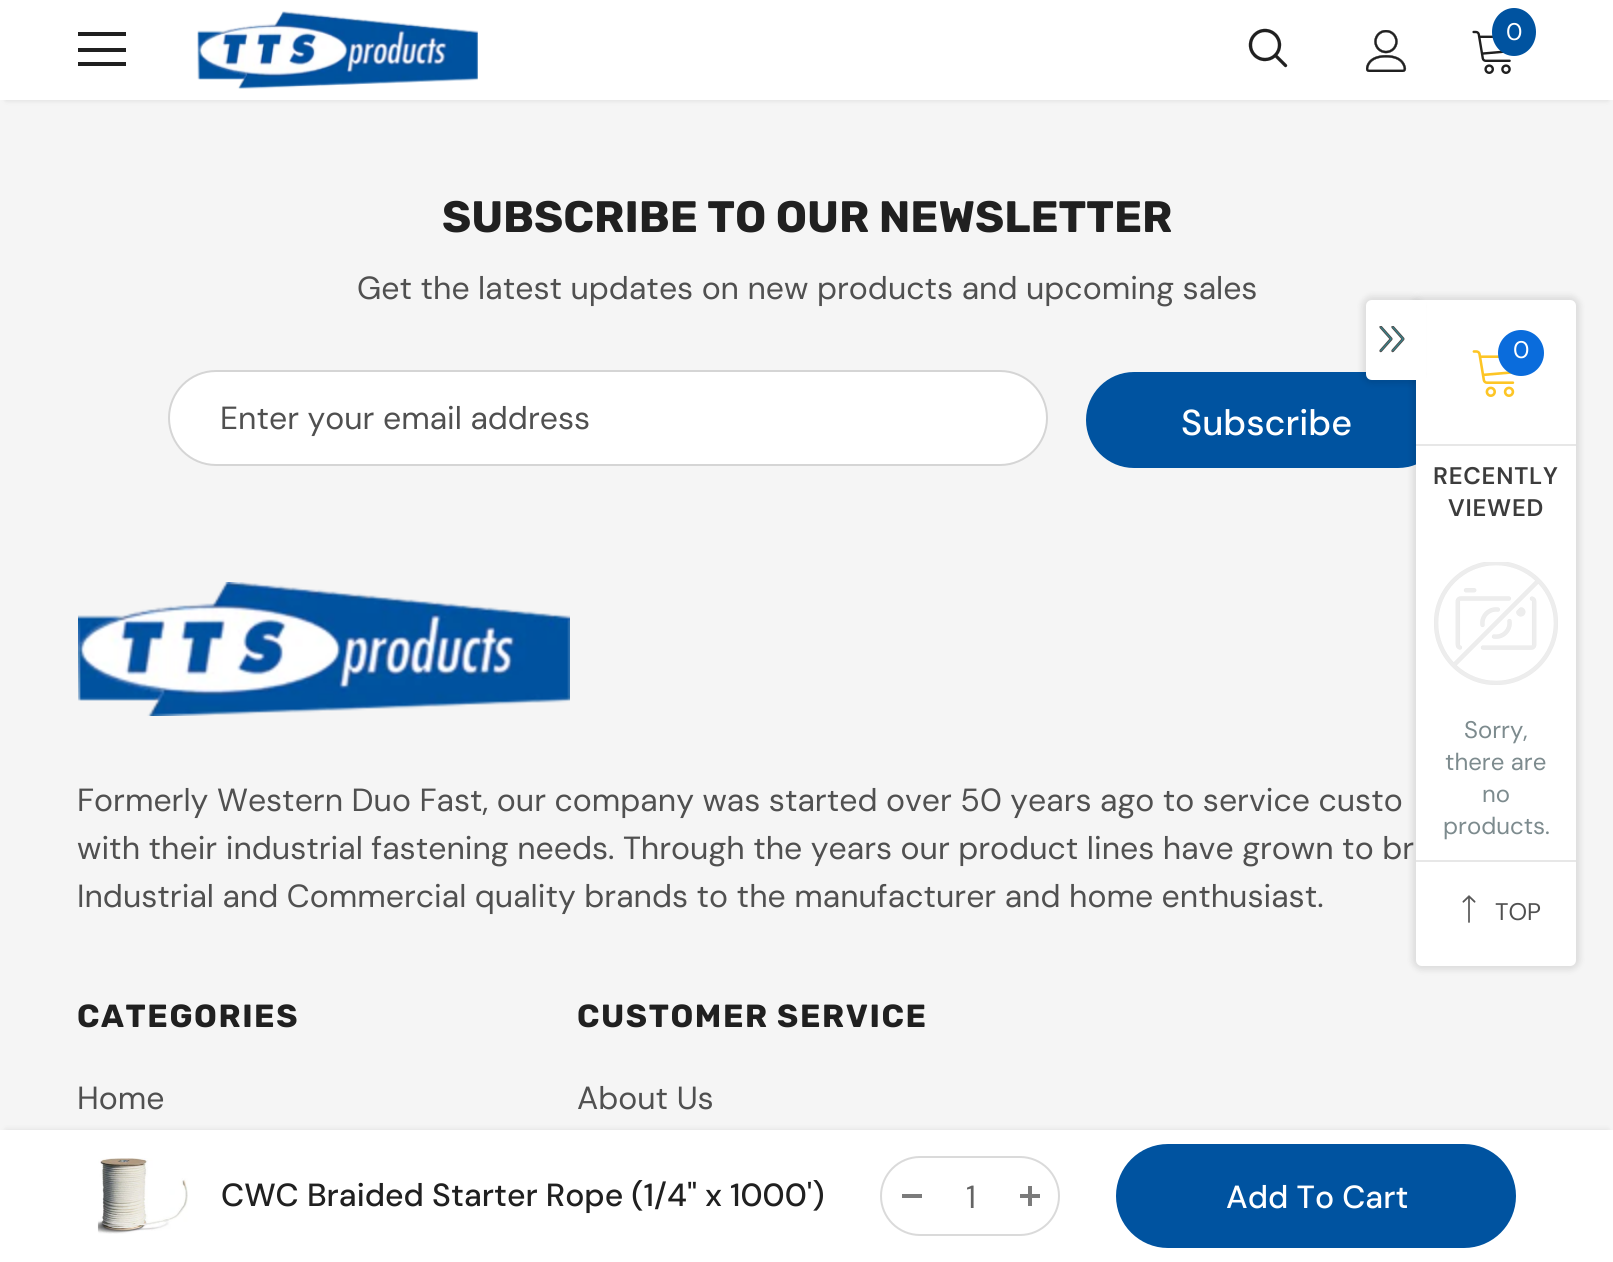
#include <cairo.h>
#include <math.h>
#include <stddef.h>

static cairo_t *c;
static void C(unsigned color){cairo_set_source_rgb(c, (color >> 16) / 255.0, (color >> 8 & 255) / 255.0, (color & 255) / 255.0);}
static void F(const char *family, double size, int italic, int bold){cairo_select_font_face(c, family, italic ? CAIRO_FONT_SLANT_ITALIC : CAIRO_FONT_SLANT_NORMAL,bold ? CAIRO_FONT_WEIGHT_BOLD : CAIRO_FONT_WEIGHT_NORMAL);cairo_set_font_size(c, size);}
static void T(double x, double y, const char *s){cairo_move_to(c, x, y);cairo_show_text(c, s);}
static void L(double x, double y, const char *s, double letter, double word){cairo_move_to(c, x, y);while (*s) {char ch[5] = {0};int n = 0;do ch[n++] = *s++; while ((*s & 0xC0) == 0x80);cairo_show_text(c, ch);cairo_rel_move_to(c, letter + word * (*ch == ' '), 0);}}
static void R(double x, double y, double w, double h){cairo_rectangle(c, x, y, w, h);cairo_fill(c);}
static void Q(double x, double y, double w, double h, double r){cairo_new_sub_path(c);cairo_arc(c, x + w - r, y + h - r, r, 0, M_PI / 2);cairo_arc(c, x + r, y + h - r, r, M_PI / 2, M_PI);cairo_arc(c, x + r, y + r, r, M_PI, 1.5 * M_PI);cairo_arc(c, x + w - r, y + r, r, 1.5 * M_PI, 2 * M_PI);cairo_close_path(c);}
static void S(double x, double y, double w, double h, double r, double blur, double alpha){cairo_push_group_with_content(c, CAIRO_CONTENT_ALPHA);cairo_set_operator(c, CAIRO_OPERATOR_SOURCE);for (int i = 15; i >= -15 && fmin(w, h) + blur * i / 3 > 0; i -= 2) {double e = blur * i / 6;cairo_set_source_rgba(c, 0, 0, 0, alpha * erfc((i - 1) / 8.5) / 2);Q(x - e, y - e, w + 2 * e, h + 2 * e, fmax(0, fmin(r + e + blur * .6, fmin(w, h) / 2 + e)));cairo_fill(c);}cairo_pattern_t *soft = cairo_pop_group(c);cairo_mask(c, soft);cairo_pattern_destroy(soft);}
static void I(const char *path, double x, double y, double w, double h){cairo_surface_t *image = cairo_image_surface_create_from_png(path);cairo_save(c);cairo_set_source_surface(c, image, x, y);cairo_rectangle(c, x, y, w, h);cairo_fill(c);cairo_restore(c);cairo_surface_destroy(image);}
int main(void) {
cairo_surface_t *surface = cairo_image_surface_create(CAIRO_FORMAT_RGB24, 1613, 1262);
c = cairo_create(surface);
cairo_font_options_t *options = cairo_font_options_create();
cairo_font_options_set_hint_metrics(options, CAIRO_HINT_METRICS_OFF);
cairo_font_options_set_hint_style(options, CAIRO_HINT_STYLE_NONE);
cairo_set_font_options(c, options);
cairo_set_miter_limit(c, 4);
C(0xf5f5f5);
cairo_paint(c);
C(0x000000);
S(6,12,1602,88,0,3,.12);
C(0xffffff);
R(0,0,1613,100);
C(0x202020);
R(78,32,48,4);
R(78,48,48,4);
R(78,62,48,4);
I("1.png",197,11,281,78);
I("2.png",1248,28,40,40);
I("3.png",1366,30,41,42);
I("4.png",1472,30,39,44);
C(0x0053a0);
cairo_new_path(c);
cairo_move_to(c,1514,8);
cairo_curve_to(c,1526,8,1536,18.5,1536,32);
cairo_curve_to(c,1536,45.5,1526,56,1514,56);
cairo_curve_to(c,1502,56,1492,45.5,1492,32);
cairo_curve_to(c,1492,18.5,1502,8,1514,8);
cairo_close_path(c);
cairo_fill(c);
F("DM Sans",24,0,0);
C(0xffffff);
T(1506,40,"0");
F("Rubik",44,0,1);
C(0x202020);
T(442,232,"SUBSCRIBE TO OUR NEWSLETTER");
F("DM Sans",32,0,0);
C(0x505050);
T(357,299,"Get the latest updates on new products and upcoming sales");
C(0xffffff);
Q(169,371,878,94,47);
cairo_fill_preserve(c);
C(0xd5d5d5);
cairo_stroke(c);
C(0x505050);
T(220,429,"Enter your email address");
C(0x0053a0);
Q(1087,373,358,94,47);
cairo_fill_preserve(c);
cairo_stroke(c);
F("DM Sans Medium",36,0,0);
C(0xffffff);
T(1181,435,"Subscribe");
I("5.png",78,582,492,134);
F("DM Sans",32,0,0);
C(0x505050);
T(77,811,"Formerly Western Duo Fast, our company was started over 50 years ago to service custo");
T(77,859,"with their industrial fastening needs. Through the years our product lines have grown to br");
T(77,907,"Industrial and Commercial quality brands to the manufacturer and home enthusiast.");
F("Rubik",32,0,1);
C(0x202020);
L(77,1027,"CATEGORIES",1.6,0);
F("DM Sans",32,0,0);
C(0x505050);
T(77,1109,"Home");
F("Rubik",32,0,1);
C(0x202020);
L(577,1027,"CUSTOMER SERVICE",1.6,0);
F("DM Sans",32,0,0);
C(0x505050);
T(577,1109,"About Us");
C(0x000000);
S(6,1130,1602,120,0,3,.1);
C(0xffffff);
R(0,1130,1613,132);
I("6.png",97,1158,91,76);
F("DM Sans Medium",32,0,0);
C(0x202020);
T(221,1206,"CWC Braided Starter Rope (1/4\" x 1000')");
Q(881,1157,178,78,39);
C(0xdadada);
cairo_stroke(c);
C(0x7b7b7b);
R(902,1194,20,4);
F("DM Sans",32,0,0);
C(0x646464);
T(966,1208,"1");
C(0x7b7b7b);
R(1020,1194,20,4);
R(1028,1186,4,20);
C(0x0053a0);
Q(1117,1145,398,102,51);
cairo_fill_preserve(c);
cairo_stroke(c);
F("DM Sans Medium",32,0,0);
C(0xffffff);
T(1226,1208,"Add To Cart");
C(0x000000);
S(1412,296,168,674,10,3,.1);
C(0xffffff);
cairo_new_path(c);
cairo_move_to(c,1416,300);
cairo_line_to(c,1570,300);
cairo_curve_to(c,1573.5,300,1576,302.5,1576,306);
cairo_line_to(c,1576,960);
cairo_curve_to(c,1576,963.5,1573.5,966,1570,966);
cairo_line_to(c,1422,966);
cairo_curve_to(c,1418.5,966,1416,963.5,1416,960);
cairo_close_path(c);
cairo_fill(c);
C(0x000000);
S(1362,296,60,88,10,3,.1);
C(0xffffff);
cairo_new_path(c);
cairo_move_to(c,1372,300);
cairo_line_to(c,1418,300);
cairo_line_to(c,1418,380);
cairo_line_to(c,1372,380);
cairo_curve_to(c,1368.5,380,1366,377.5,1366,374);
cairo_line_to(c,1366,306);
cairo_curve_to(c,1366,302.5,1368.5,300,1372,300);
cairo_close_path(c);
cairo_fill(c);
I("7.png",1379,326,26,27);
R(1416,300,10,87);
C(0xe7e7e7);
R(1416,444,160,2);
I("8.png",1472,350,43,47);
C(0x0a6cdc);
cairo_arc(c,1521,353,23,0,2 * M_PI);
cairo_fill(c);
F("DM Sans",24,0,0);
C(0xffffff);
T(1513,358,"0");
F("DM Sans SemiBold",24,0,0);
C(0x3c3c3c);
L(1433,484,"RECENTLY",.75,0);
L(1448,516,"VIEWED",.75,0);
I("9.png",1434,562,124,123);
F("DM Sans",24,0,0);
C(0x7d8b8e);
T(1464,738,"Sorry,");
T(1445,770,"there are");
T(1482,802,"no");
T(1443,834,"products.");
C(0xe7e7e7);
R(1416,860,160,2);
I("10.png",1462,895,14,28);
C(0x505050);
T(1495,920,"TOP");
cairo_surface_write_to_png(surface, "o.png");
cairo_font_options_destroy(options);
cairo_destroy(c);
cairo_surface_destroy(surface);
return 0;
}
